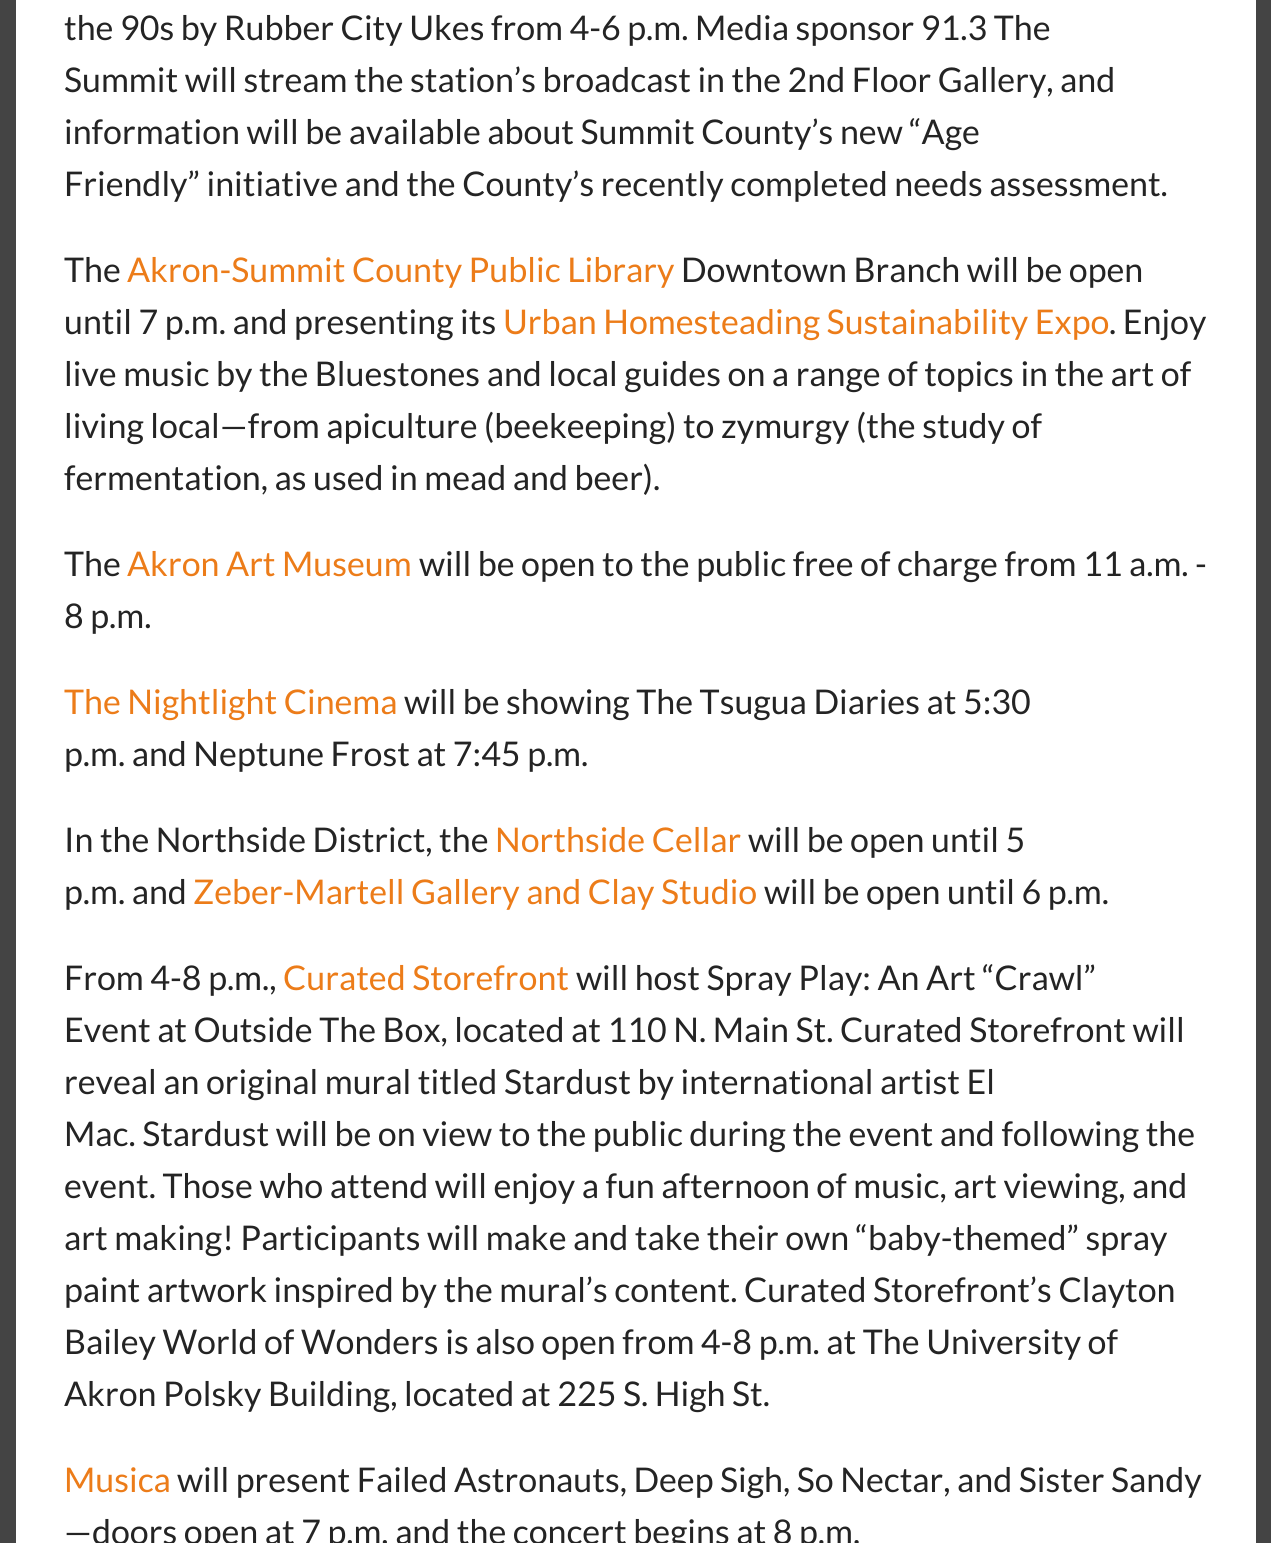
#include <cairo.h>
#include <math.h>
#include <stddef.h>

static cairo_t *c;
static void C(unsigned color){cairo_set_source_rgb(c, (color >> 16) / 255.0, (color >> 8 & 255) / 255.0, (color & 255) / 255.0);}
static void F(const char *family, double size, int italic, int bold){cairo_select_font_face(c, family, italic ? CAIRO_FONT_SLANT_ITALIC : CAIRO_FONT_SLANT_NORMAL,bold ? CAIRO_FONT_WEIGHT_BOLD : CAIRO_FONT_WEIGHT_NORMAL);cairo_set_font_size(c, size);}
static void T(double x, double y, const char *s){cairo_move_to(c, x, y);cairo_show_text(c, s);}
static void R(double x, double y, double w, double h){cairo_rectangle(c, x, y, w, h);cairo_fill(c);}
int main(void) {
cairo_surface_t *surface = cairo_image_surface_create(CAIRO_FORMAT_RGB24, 1271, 1543);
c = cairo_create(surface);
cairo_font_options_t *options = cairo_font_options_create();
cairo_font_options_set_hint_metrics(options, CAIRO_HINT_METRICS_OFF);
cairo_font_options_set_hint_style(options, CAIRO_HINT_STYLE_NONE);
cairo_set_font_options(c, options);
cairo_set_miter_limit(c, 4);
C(0x444444);
cairo_paint(c);
C(0xffffff);
R(16,0,1240,1543);
F("Lato",34,0,0);
C(0x242424);
T(64,40,"the 90s by Rubber City Ukes from 4-6 p.m. Media sponsor 91.3 The");
T(64,92,"Summit will stream the station’s broadcast in the 2nd Floor Gallery, and");
T(64,144,"information will be available about Summit County’s new “Age");
T(64,196,"Friendly” initiative and the County’s recently completed needs assessment.");
T(64,282,"The");
C(0xec7c19);
T(127,282,"Akron-Summit County Public Library");
C(0x242424);
T(681,282,"Downtown Branch will be open");
T(64,334,"until 7 p.m. and presenting its");
C(0xec7c19);
T(503,334,"Urban Homesteading Sustainability Expo");
C(0x242424);
T(1109,334,". Enjoy");
T(64,386,"live music by the Bluestones and local guides on a range of topics in the art of");
T(64,438,"living local—from apiculture (beekeeping) to zymurgy (the study of");
T(64,490,"fermentation, as used in mead and beer).");
T(64,576,"The");
C(0xec7c19);
T(127,576,"Akron Art Museum");
C(0x242424);
T(419,576,"will be open to the public free of charge from 11 a.m. -");
T(64,628,"8 p.m.");
C(0xec7c19);
T(64,714,"The Nightlight Cinema");
C(0x242424);
T(404,714,"will be showing The Tsugua Diaries at 5:30");
T(64,766,"p.m. and Neptune Frost at 7:45 p.m.");
T(64,852,"In the Northside District, the");
C(0xec7c19);
T(495,852,"Northside Cellar");
C(0x242424);
T(748,852,"will be open until 5");
T(64,904,"p.m. and");
C(0xec7c19);
T(193,904,"Zeber-Martell Gallery and Clay Studio");
C(0x242424);
T(764,904,"will be open until 6 p.m.");
T(64,990,"From 4-8 p.m.,");
C(0xec7c19);
T(283,990,"Curated Storefront");
C(0x242424);
T(576,990,"will host Spray Play: An Art “Crawl”");
T(64,1042,"Event at Outside The Box, located at 110 N. Main St. Curated Storefront will");
T(64,1094,"reveal an original mural titled Stardust by international artist El");
T(64,1146,"Mac. Stardust will be on view to the public during the event and following the");
T(64,1198,"event. Those who attend will enjoy a fun afternoon of music, art viewing, and");
T(64,1250,"art making! Participants will make and take their own “baby-themed” spray");
T(64,1302,"paint artwork inspired by the mural’s content. Curated Storefront’s Clayton");
T(64,1354,"Bailey World of Wonders is also open from 4-8 p.m. at The University of");
T(64,1406,"Akron Polsky Building, located at 225 S. High St.");
C(0xec7c19);
T(64,1492,"Musica");
C(0x242424);
T(177,1492,"will present Failed Astronauts, Deep Sigh, So Nectar, and Sister Sandy");
T(64,1544,"—doors open at 7 p.m. and the concert begins at 8 p.m.");
cairo_surface_write_to_png(surface, "o.png");
cairo_font_options_destroy(options);
cairo_destroy(c);
cairo_surface_destroy(surface);
return 0;
}
